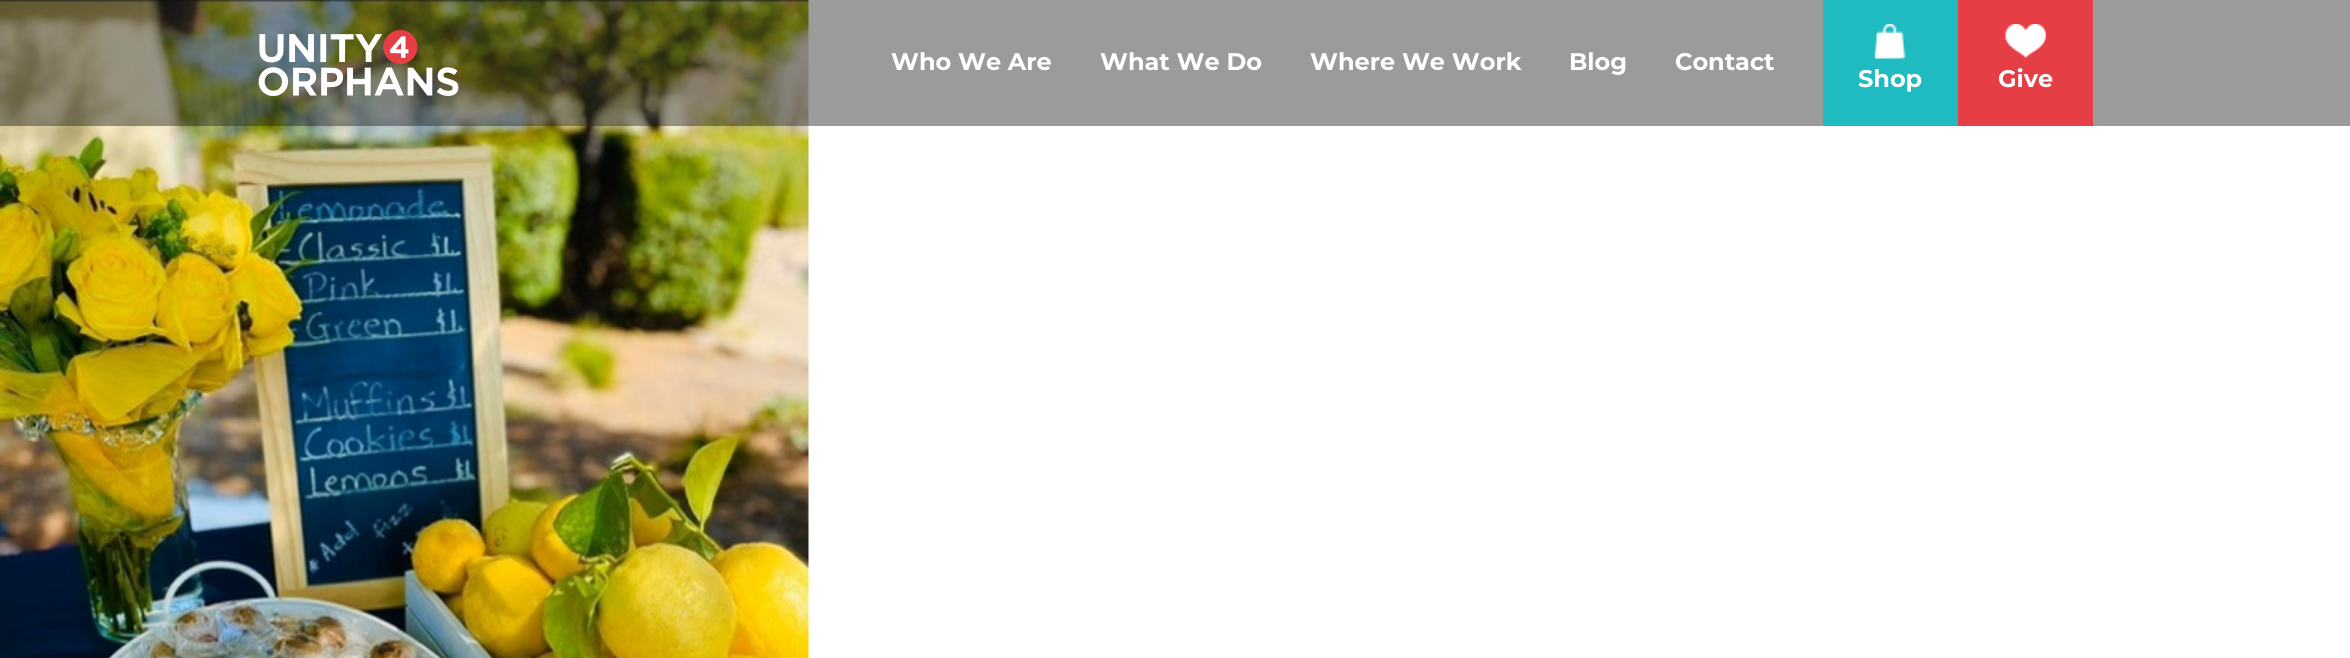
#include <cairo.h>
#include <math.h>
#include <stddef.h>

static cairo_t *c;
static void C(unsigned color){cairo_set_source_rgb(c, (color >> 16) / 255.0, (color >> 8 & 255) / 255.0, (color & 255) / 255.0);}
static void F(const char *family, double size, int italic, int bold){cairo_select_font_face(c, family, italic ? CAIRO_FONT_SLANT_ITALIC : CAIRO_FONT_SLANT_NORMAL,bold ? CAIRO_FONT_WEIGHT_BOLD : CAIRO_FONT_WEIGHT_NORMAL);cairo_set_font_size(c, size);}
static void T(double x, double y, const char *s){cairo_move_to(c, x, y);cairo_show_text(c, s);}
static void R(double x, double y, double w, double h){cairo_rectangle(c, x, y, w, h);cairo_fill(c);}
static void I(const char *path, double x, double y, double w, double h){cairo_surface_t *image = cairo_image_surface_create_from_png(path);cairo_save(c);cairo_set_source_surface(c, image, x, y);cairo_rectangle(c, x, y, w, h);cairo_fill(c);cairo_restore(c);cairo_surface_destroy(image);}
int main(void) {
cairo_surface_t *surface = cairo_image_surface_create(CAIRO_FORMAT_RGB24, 2350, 658);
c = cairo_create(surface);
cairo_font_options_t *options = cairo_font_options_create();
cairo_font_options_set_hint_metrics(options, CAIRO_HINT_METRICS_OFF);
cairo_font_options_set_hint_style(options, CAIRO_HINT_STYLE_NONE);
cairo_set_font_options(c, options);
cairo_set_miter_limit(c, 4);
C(0xffffff);
cairo_paint(c);
I("1.png",0,0,809,658);
cairo_set_source_rgba(c,0.133,0.133,0.133,0.45);
R(0,0,2350,126);
I("2.png",258,30,201,66);
F("Montserrat",24,0,1);
C(0xffffff);
T(891,70,"Who We Are");
T(1100,70,"What We Do");
T(1310,70,"Where We Work");
T(1569,70,"Blog");
T(1675,70,"Contact");
C(0x20bbc0);
R(1823,0,135,126);
I("3.png",1874,24,32,35);
C(0xffffff);
T(1858,87,"Shop");
C(0xe53e45);
R(1958,0,135,126);
I("4.png",2005,24,41,34);
C(0xffffff);
T(1998,87,"Give");
cairo_surface_write_to_png(surface, "o.png");
cairo_font_options_destroy(options);
cairo_destroy(c);
cairo_surface_destroy(surface);
return 0;
}
